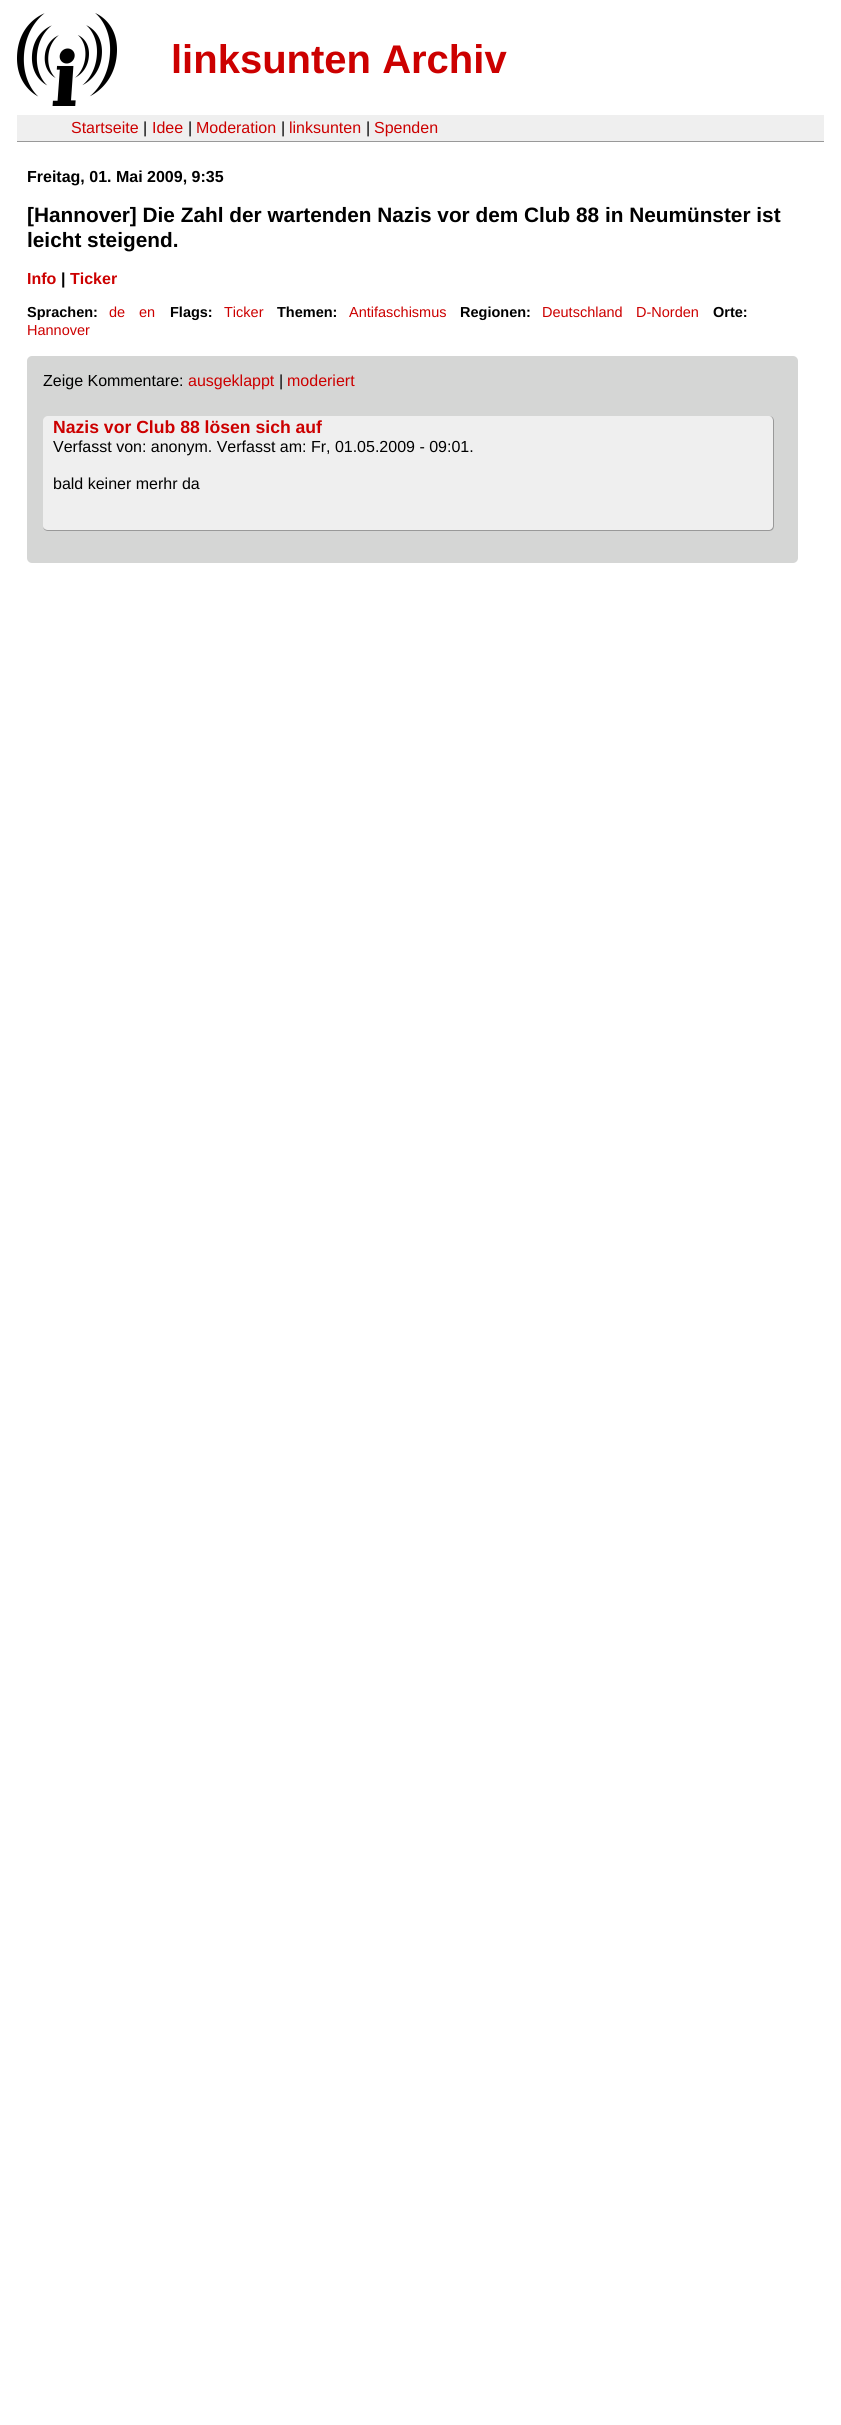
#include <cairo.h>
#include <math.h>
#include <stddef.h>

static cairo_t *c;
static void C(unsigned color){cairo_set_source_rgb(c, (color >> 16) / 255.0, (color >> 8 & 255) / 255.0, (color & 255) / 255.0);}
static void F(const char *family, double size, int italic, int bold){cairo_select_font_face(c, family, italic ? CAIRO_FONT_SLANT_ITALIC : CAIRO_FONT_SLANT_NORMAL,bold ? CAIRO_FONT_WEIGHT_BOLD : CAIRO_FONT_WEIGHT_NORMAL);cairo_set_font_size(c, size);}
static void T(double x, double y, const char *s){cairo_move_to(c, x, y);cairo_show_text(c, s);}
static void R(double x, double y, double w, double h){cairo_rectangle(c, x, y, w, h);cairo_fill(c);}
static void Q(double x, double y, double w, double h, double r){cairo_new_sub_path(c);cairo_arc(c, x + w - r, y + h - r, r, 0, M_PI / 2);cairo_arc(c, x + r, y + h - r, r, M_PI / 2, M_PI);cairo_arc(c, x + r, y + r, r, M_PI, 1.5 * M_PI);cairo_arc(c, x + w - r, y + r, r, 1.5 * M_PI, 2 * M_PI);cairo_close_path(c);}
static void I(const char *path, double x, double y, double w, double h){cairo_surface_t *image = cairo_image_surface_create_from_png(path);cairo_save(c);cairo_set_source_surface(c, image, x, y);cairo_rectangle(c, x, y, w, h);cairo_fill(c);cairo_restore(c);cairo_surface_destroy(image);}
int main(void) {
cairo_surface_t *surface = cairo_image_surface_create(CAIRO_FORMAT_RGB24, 841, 2425);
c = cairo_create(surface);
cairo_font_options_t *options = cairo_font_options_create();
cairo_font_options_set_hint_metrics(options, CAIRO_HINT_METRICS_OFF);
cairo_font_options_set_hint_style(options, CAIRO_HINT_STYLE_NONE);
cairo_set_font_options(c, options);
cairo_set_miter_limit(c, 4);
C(0xffffff);
cairo_paint(c);
I("1.png",17,13,100,93);
F("Liberation Sans",40,0,1);
C(0xcc0000);
T(171,73,"linksunten Archiv");
C(0xefefef);
R(17,115,807,26);
C(0x999999);
R(17,141,807,1);
F("Liberation Sans",16,0,0);
C(0xcc0000);
T(71,133,"Startseite");
C(0x000000);
T(143,133,"|");
C(0xcc0000);
T(152,133,"Idee");
C(0x000000);
T(188,133,"|");
C(0xcc0000);
T(196,133,"Moderation");
C(0x000000);
T(281,133,"|");
C(0xcc0000);
T(289,133,"linksunten");
C(0x000000);
T(366,133,"|");
C(0xcc0000);
T(374,133,"Spenden");
F("Liberation Sans",16,0,1);
C(0x000000);
T(27,182,"Freitag, 01. Mai 2009, 9:35");
F("Liberation Sans",20.8,0,1);
T(27,222,"[Hannover] Die Zahl der wartenden Nazis vor dem Club 88 in Neumünster ist");
T(27,247,"leicht steigend.");
F("Liberation Sans",16,0,1);
C(0xcc0000);
T(27,284,"Info");
C(0x000000);
T(61,284,"|");
C(0xcc0000);
T(70,284,"Ticker");
F("Liberation Sans",14.5,0,1);
C(0x000000);
T(27,317,"Sprachen:");
F("Liberation Sans",14.5,0,0);
C(0xcc0000);
T(109,317,"de");
T(139,317,"en");
F("Liberation Sans",14.5,0,1);
C(0x000000);
T(713,317,"Orte:");
F("Liberation Sans",14.5,0,0);
C(0xcc0000);
T(27,335,"Hannover");
F("Liberation Sans",14.5,0,1);
C(0x000000);
T(170,317,"Flags:");
F("Liberation Sans",14.5,0,0);
C(0xcc0000);
T(224,317,"Ticker");
F("Liberation Sans",14.5,0,1);
C(0x000000);
T(277,317,"Themen:");
F("Liberation Sans",14.5,0,0);
C(0xcc0000);
T(349,317,"Antifaschismus");
F("Liberation Sans",14.5,0,1);
C(0x000000);
T(460,317,"Regionen:");
F("Liberation Sans",14.5,0,0);
C(0xcc0000);
T(542,317,"Deutschland");
T(636,317,"D-Norden");
C(0xd5d6d5);
Q(27,356,771,207,5);
cairo_fill(c);
F("Liberation Sans",16,0,0);
C(0x000000);
T(43,386,"Zeige Kommentare:");
C(0xcc0000);
T(188,386,"ausgeklappt");
C(0x000000);
T(279,386,"|");
C(0xcc0000);
T(287,386,"moderiert");
C(0xefefef);
Q(43,416,731,115,5);
cairo_fill(c);
C(0x999999);
cairo_set_fill_rule(c,CAIRO_FILL_RULE_EVEN_ODD);
cairo_new_path(c);
cairo_move_to(c,48,416);
cairo_line_to(c,769,416);
cairo_curve_to(c,772,416,774,418,774,421);
cairo_line_to(c,774,526);
cairo_curve_to(c,774,529,772,531,769,531);
cairo_line_to(c,48,531);
cairo_curve_to(c,45,531,43,529,43,526);
cairo_line_to(c,43,421);
cairo_curve_to(c,43,418,45,416,48,416);
cairo_close_path(c);
cairo_move_to(c,48,416);
cairo_line_to(c,769,416);
cairo_curve_to(c,771,416,773,418,773,421);
cairo_line_to(c,773,526);
cairo_curve_to(c,773,528,771,530,769,530);
cairo_line_to(c,48,530);
cairo_curve_to(c,45,530,43,528,43,526);
cairo_line_to(c,43,421);
cairo_curve_to(c,43,418,45,416,48,416);
cairo_close_path(c);
cairo_fill(c);
F("Liberation Sans",17.6,0,1);
C(0xcc0000);
T(53,433,"Nazis vor Club 88 lösen sich auf");
F("Liberation Sans",16,0,0);
C(0x000000);
T(53,452,"Verfasst von: anonym. Verfasst am: Fr, 01.05.2009 - 09:01.");
T(53,489,"bald keiner merhr da");
cairo_surface_write_to_png(surface, "o.png");
cairo_font_options_destroy(options);
cairo_destroy(c);
cairo_surface_destroy(surface);
return 0;
}
